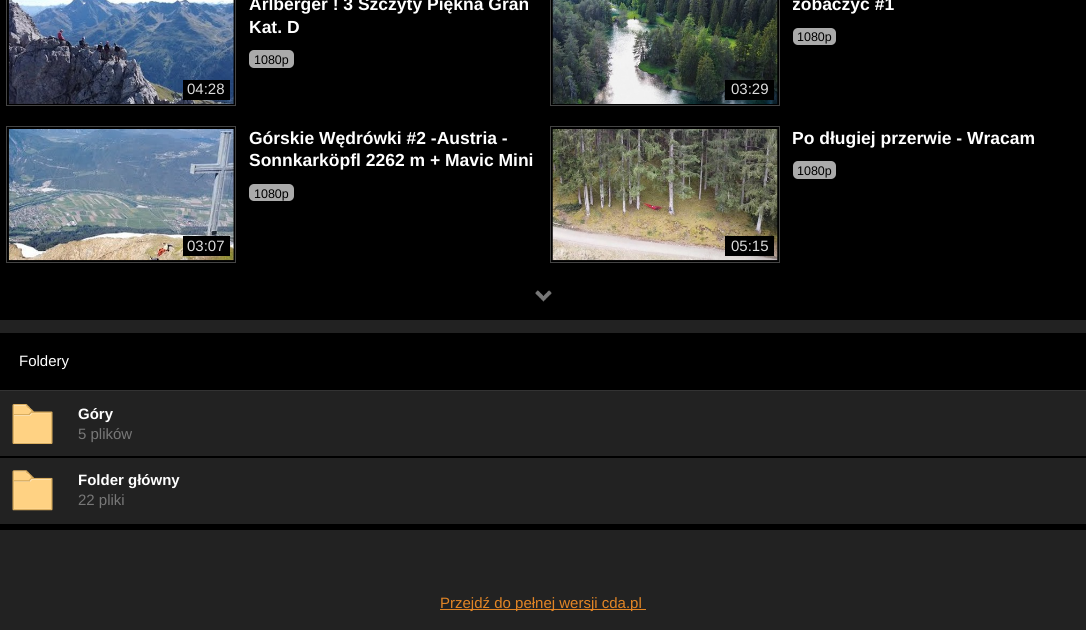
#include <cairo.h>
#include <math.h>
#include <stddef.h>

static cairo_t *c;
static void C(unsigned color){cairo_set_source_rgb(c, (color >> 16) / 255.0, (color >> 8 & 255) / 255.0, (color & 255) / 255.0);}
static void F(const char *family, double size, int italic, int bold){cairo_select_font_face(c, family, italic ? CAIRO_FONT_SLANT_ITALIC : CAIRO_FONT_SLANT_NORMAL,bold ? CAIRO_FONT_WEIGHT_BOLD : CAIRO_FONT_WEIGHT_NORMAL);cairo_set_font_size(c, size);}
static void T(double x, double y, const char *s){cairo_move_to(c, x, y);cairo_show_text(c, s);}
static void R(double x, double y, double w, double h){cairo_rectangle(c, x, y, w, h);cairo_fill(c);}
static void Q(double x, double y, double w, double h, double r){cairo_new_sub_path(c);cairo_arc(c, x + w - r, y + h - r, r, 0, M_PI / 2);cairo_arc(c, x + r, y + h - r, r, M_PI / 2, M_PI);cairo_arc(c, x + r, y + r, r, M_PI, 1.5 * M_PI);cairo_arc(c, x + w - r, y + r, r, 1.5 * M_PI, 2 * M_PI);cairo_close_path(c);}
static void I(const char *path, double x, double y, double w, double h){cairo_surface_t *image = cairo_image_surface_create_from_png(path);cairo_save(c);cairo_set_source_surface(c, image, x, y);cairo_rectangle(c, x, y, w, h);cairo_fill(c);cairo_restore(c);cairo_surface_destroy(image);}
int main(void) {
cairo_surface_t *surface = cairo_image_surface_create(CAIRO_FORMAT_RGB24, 1086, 630);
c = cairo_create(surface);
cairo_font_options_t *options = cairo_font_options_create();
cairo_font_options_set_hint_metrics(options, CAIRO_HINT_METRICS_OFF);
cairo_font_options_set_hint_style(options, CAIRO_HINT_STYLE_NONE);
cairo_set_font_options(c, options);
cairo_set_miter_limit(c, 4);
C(0x222222);
cairo_paint(c);
C(0x000000);
R(0,0,1086,320);
F("Liberation Sans",17.5,0,1);
C(0xffffff);
T(249,10,"Arlberger ! 3 Szczyty Piękna Grań");
T(249,33,"Kat. D");
C(0xaaaaaa);
Q(249,50,45,18,5);
cairo_fill(c);
F("Liberation Sans",12.5,0,0);
C(0x000000);
T(254,64,"1080p");
cairo_rectangle(c,6.5,-.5,229,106);
C(0x444444);
cairo_set_line_width(c,1);
cairo_stroke(c);
I("1.png",8,0,226,104);
C(0x000000);
R(183,80,47,20);
F("Liberation Sans",15,0,0);
C(0xdddddd);
T(187,94,"04:28");
cairo_save(c);
cairo_rectangle(c,793,0,287,59);
cairo_clip(c);
F("Liberation Sans",17.5,0,1);
C(0xffffff);
T(792,10,"zobaczyć #1");
cairo_restore(c);
C(0xaaaaaa);
Q(793,28,43,17,5);
cairo_fill(c);
F("Liberation Sans",12.5,0,0);
C(0x000000);
T(797,41,"1080p");
cairo_rectangle(c,550.5,-.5,229,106);
C(0x444444);
cairo_stroke(c);
I("2.png",552,0,226,104);
C(0x000000);
R(725,80,49,20);
F("Liberation Sans",15,0,0);
C(0xdddddd);
T(731,94,"03:29");
F("Liberation Sans",17.5,0,1);
C(0xffffff);
T(249,144,"Górskie Wędrówki #2 -Austria -");
T(249,166,"Sonnkarköpfl 2262 m + Mavic Mini");
C(0xaaaaaa);
Q(249,184,45,17,5);
cairo_fill(c);
F("Liberation Sans",12.5,0,0);
C(0x000000);
T(254,198,"1080p");
cairo_rectangle(c,6.5,126.5,229,136);
C(0x444444);
cairo_stroke(c);
I("3.png",8,129,226,132);
C(0x000000);
R(183,236,47,20);
F("Liberation Sans",15,0,0);
C(0xdddddd);
T(187,251,"03:07");
F("Liberation Sans",17.5,0,1);
C(0xffffff);
T(792,144,"Po długiej przerwie - Wracam");
C(0xaaaaaa);
Q(793,161,43,18,5);
cairo_fill(c);
F("Liberation Sans",12.5,0,0);
C(0x000000);
T(797,175,"1080p");
cairo_rectangle(c,550.5,126.5,229,136);
C(0x444444);
cairo_stroke(c);
I("4.png",552,129,226,132);
C(0x000000);
R(725,236,49,20);
F("Liberation Sans",15,0,0);
C(0xdddddd);
T(731,251,"05:15");
I("5.png",535,290,17,12);
C(0x000000);
R(0,333,1086,57);
C(0x333333);
R(0,390,1086,1);
C(0xffffff);
T(19,366,"Foldery");
C(0x000000);
R(0,456,1086,2);
I("6.png",12,404,41,40);
F("Liberation Sans",15,0,1);
C(0xffffff);
T(78,419,"Góry");
F("Liberation Sans",15,0,0);
C(0x777777);
T(78,439,"5 plików");
I("7.png",12,470,41,41);
F("Liberation Sans",15,0,1);
C(0xffffff);
T(78,485,"Folder główny");
F("Liberation Sans",15,0,0);
C(0x777777);
T(78,505,"22 pliki");
C(0x000000);
R(0,524,1086,6);
C(0xe28525);
R(440,609,206,1);
T(440,608,"Przejdź do pełnej wersji cda.pl");
cairo_surface_write_to_png(surface, "o.png");
cairo_font_options_destroy(options);
cairo_destroy(c);
cairo_surface_destroy(surface);
return 0;
}
